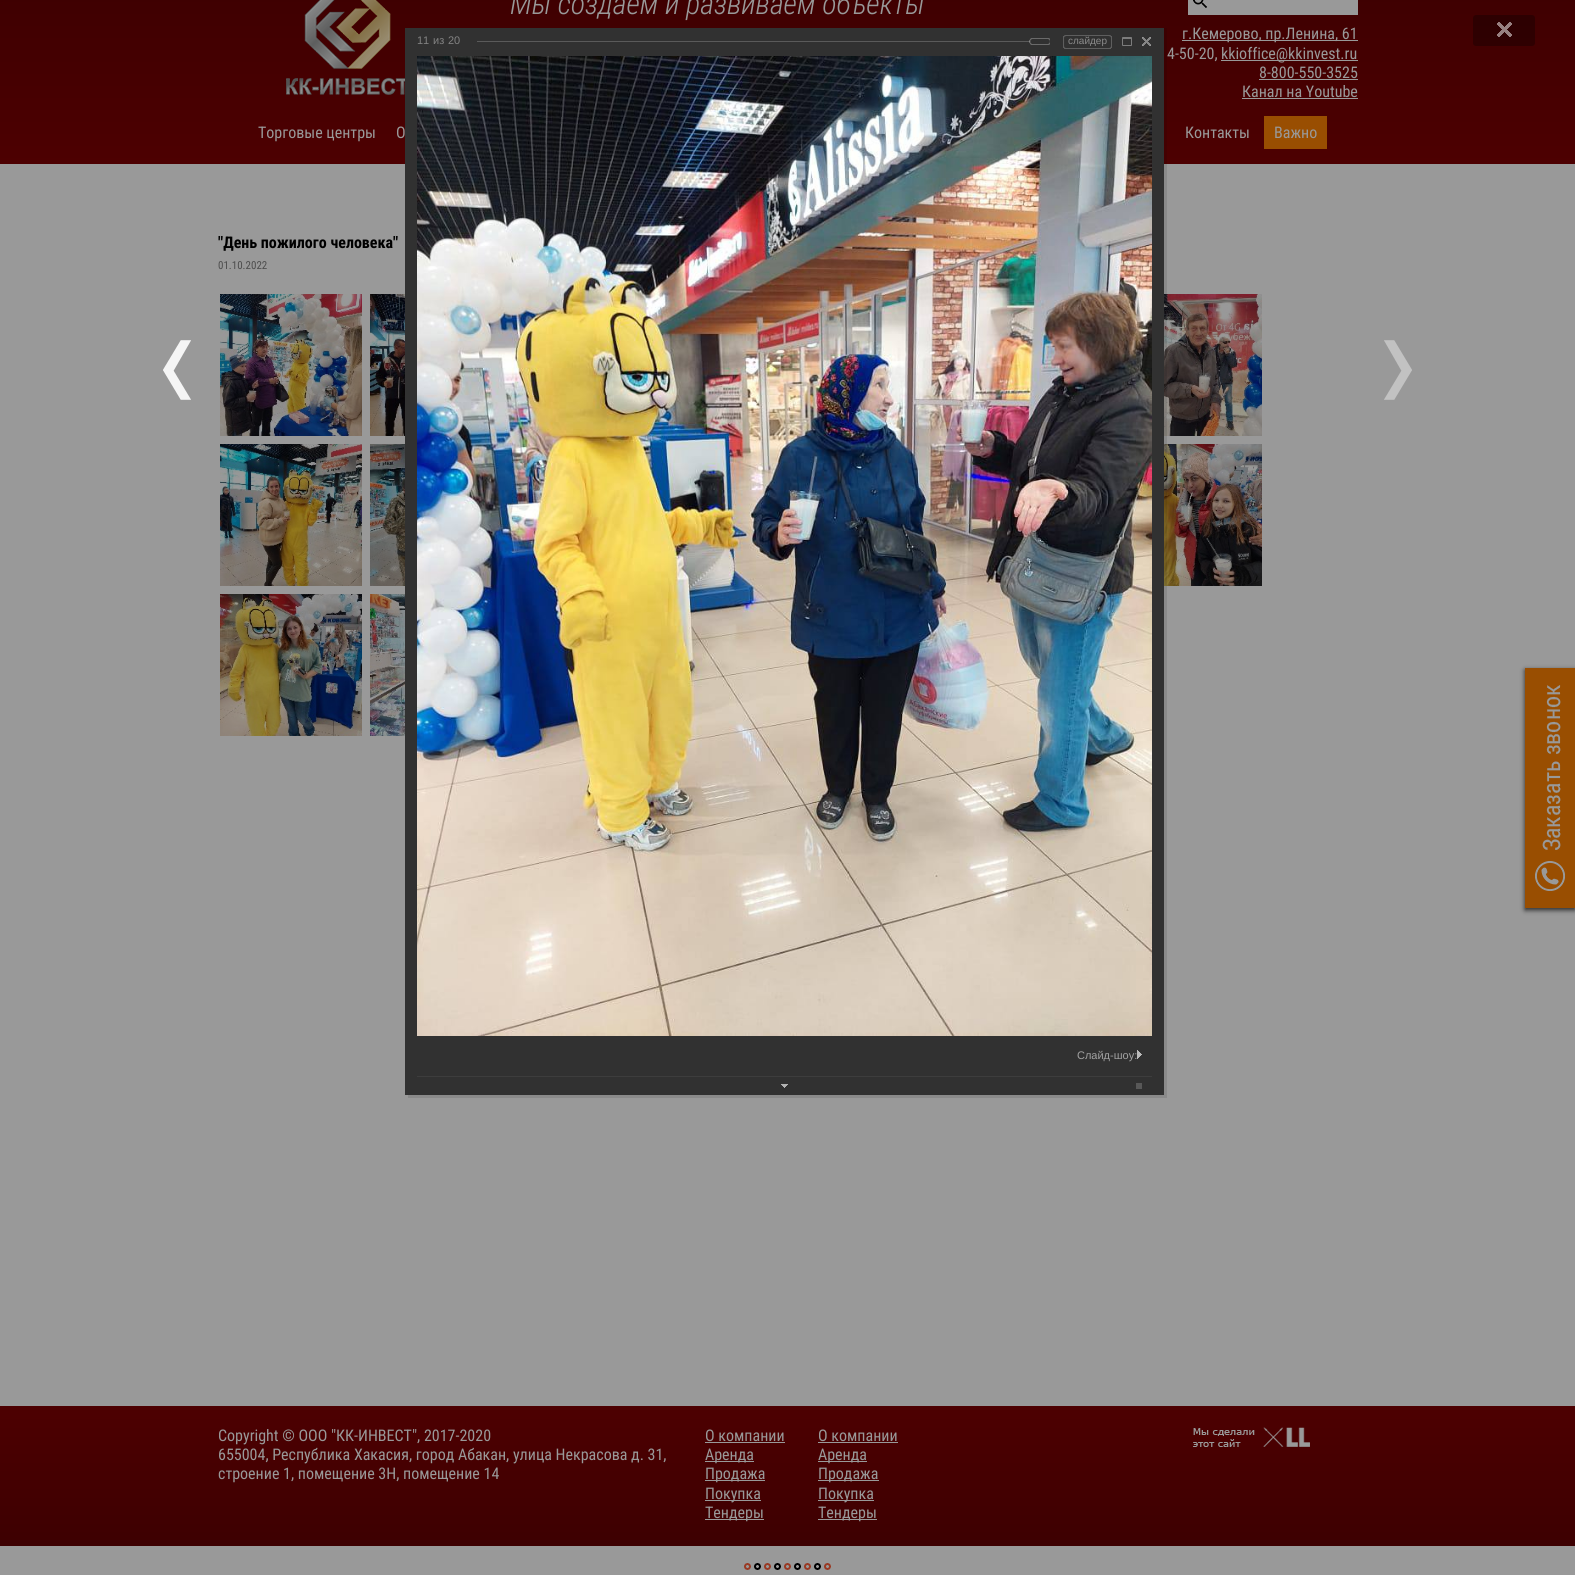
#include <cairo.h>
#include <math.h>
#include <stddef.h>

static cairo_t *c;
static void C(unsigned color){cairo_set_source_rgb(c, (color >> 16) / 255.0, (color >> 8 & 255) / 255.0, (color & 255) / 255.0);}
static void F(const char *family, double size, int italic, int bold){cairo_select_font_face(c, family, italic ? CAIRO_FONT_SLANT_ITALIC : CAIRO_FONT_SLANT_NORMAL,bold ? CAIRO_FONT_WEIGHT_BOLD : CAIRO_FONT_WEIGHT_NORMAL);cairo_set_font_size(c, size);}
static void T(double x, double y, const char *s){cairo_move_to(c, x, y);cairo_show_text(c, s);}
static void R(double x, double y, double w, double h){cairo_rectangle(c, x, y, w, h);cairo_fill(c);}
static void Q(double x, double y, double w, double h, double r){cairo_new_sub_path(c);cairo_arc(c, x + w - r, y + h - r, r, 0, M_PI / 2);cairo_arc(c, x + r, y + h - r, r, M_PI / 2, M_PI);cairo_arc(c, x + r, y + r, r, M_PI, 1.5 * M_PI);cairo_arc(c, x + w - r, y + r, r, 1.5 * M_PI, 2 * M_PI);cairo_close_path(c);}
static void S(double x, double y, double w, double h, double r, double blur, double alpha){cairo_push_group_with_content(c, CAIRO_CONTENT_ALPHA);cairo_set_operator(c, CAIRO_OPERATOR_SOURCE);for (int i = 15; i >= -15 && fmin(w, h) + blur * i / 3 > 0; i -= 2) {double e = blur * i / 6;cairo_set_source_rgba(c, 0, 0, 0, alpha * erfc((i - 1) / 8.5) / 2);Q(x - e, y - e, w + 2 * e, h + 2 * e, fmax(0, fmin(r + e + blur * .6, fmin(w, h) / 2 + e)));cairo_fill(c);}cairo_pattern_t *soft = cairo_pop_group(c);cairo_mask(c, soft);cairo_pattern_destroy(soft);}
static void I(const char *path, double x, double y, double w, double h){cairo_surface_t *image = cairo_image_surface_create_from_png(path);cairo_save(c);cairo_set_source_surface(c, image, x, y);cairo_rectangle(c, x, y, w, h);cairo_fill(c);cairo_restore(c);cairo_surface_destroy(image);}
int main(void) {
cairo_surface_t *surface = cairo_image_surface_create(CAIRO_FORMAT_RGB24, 1575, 1575);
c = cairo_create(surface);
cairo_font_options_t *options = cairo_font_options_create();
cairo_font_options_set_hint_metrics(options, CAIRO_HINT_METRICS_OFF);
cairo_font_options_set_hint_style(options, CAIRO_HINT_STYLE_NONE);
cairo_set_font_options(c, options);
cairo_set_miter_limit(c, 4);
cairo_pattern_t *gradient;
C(0x999999);
cairo_paint(c);
gradient = cairo_pattern_create_linear(788,-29,788,164);
cairo_pattern_add_color_stop_rgba(gradient,0,0.239,0,0.004,1);
cairo_pattern_add_color_stop_rgba(gradient,1,0.302,0,0.004,1);
cairo_set_source(c,gradient);
cairo_pattern_destroy(gradient);
R(0,0,1575,164);
I("1.png",286,0,119,95);
F("Roboto Condensed Light",30,1,0);
C(0x999999);
T(510,14,"Мы создаем и развиваем объекты");
R(1188,0,170,15);
I("2.png",1193,0,14,8);
R(1182,40,176,1);
F("Roboto Condensed",16,0,0);
T(1182,39,"г.Кемерово, пр.Ленина, 61");
T(1167,59,"4-50-20,");
R(1221,60,137,1);
T(1221,59,"kkioffice@kkinvest.ru");
T(1259,78,"8-800-550-3525");
R(1259,79,99,1);
T(1242,97,"Канал на Youtube");
R(1242,98,116,1);
T(258,138,"Торговые центры");
T(396,138,"О");
T(1185,138,"Контакты");
C(0x994e01);
R(1264,116,63,33);
C(0x999999);
T(1274,138,"Важно");
F("Roboto Condensed",16,0,1);
C(0x000000);
T(218,248,"\"День пожилого человека\"");
F("Roboto Condensed",11,0,0);
C(0x4c4c4c);
T(218,269,"01.10.2022");
I("3.png",220,294,142,142);
I("4.png",370,294,35,142);
I("5.png",1164,294,98,142);
I("6.png",220,444,142,142);
I("7.png",370,444,35,142);
I("8.png",1164,444,98,142);
I("9.png",220,594,142,142);
I("10.png",370,594,35,142);
C(0x000000);
S(1525,670,50,240,0,2.5,.75);
C(0x994e01);
R(1525,668,50,240);
I("11.png",1535,685,30,206);
I("12.png",163,340,28,60);
cairo_set_source_rgba(c,0,0,0,0.1);
R(408,28,759,1070);
C(0x313131);
R(405,28,759,1067);
F("Liberation Sans",11,0,0);
C(0x838383);
T(417,44,"11");
T(433,44,"из");
T(448,44,"20");
C(0x5a5a5a);
R(477,41,552,1);
I("13.png",1029,38,21,7);
I("14.png",1063,35,46,14);
F("Liberation Sans",10,0,0);
C(0x8c8c8c);
T(1068,44,"слайдер");
I("15.png",1109,35,3,14);
I("16.png",1122,37,10,9);
I("17.png",1142,37,9,9);
I("18.png",417,56,735,980);
C(0x3d3d3d);
R(417,1076,735,1);
F("Liberation Sans",11,0,0);
C(0xa2a2a2);
T(1077,1059,"Слайд-шоу:");
I("19.png",1137,1050,5,9);
I("20.png",781,1084,7,4);
C(0x585858);
R(1136,1083,6,6);
I("21.png",1473,15,62,31);
I("22.png",1384,340,28,60);
gradient = cairo_pattern_create_linear(788,1406,788,1546);
cairo_pattern_add_color_stop_rgba(gradient,0,0.302,0,0.004,1);
cairo_pattern_add_color_stop_rgba(gradient,1,0.239,0,0.004,1);
cairo_set_source(c,gradient);
cairo_pattern_destroy(gradient);
R(0,1406,1575,140);
F("Roboto Condensed",16,0,0);
C(0x999999);
T(218,1441,"Copyright © ООО \"КК-ИНВЕСТ\", 2017-2020");
T(218,1460,"655004, Республика Хакасия, город Абакан, улица Некрасова д. 31,");
T(218,1479,"строение 1, помещение 3Н, помещение 14");
T(705,1441,"О компании");
R(705,1442,80,1);
R(705,1461,49,1);
T(705,1460,"Аренда");
R(705,1480,60,1);
T(705,1479,"Продажа");
R(705,1500,56,1);
T(705,1499,"Покупка");
R(705,1519,59,1);
T(705,1518,"Тендеры");
T(818,1441,"О компании");
R(818,1442,80,1);
R(818,1461,49,1);
T(818,1460,"Аренда");
R(818,1480,61,1);
T(818,1479,"Продажа");
R(818,1500,56,1);
T(818,1499,"Покупка");
R(818,1519,59,1);
T(818,1518,"Тендеры");
I("23.png",1193,1427,117,20);
I("24.png",744,1563,87,7);
cairo_surface_write_to_png(surface, "o.png");
cairo_font_options_destroy(options);
cairo_destroy(c);
cairo_surface_destroy(surface);
return 0;
}
